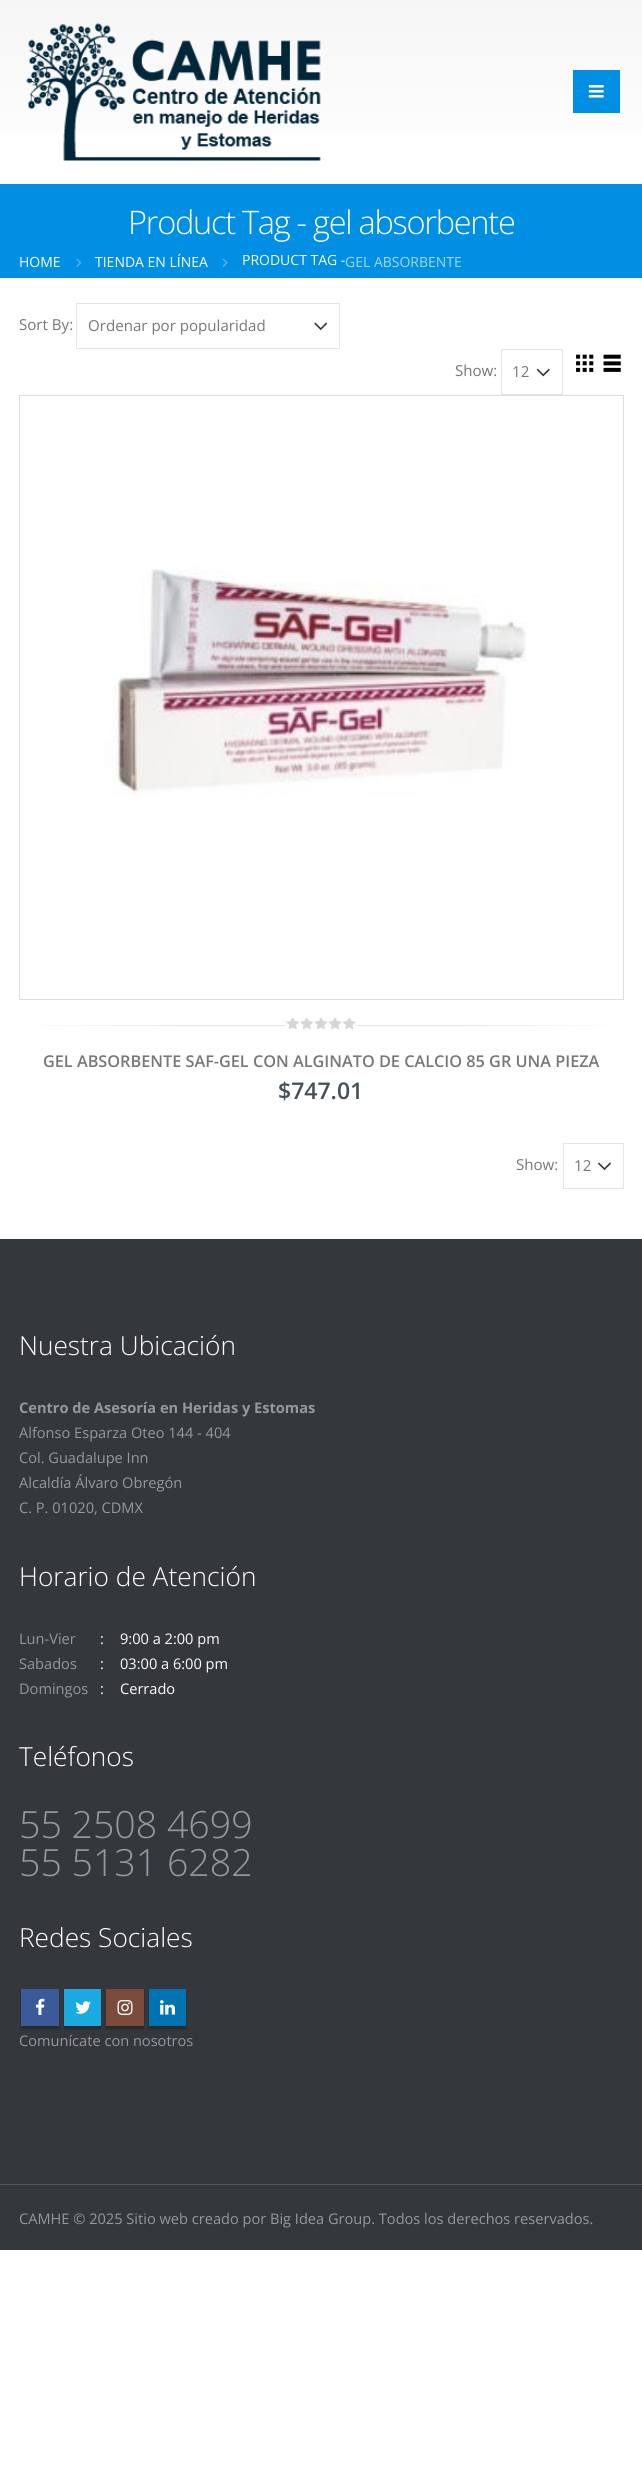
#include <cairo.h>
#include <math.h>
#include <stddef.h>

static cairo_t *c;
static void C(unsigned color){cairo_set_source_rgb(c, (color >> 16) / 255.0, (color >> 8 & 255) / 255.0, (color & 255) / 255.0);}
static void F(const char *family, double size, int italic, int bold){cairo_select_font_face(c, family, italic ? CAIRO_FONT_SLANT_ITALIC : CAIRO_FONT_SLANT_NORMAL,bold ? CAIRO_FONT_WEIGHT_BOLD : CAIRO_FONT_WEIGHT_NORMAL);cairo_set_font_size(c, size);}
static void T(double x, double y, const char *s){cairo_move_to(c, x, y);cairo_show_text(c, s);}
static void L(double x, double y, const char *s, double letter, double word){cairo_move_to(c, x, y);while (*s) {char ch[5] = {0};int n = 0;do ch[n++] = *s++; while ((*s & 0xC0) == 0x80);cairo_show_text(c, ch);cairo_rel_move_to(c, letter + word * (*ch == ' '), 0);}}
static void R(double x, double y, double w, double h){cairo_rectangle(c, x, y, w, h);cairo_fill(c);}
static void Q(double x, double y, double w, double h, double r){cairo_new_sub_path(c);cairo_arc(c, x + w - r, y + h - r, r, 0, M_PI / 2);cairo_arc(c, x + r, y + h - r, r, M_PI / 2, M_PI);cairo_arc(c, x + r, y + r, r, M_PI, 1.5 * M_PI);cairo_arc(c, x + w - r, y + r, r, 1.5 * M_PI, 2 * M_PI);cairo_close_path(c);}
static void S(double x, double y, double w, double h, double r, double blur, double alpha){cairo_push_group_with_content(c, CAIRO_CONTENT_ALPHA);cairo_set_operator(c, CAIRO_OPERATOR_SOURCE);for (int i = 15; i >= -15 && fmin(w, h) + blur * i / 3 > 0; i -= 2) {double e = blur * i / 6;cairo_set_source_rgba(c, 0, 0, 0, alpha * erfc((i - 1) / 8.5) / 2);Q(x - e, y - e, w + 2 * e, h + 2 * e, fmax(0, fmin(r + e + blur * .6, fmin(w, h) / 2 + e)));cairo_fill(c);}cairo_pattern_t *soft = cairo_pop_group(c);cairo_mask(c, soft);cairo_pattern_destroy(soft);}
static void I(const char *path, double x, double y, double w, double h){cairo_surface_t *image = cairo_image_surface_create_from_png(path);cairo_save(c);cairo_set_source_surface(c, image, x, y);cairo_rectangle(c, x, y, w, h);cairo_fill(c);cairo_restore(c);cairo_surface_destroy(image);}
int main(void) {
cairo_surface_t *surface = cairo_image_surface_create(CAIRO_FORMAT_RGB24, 642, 2479);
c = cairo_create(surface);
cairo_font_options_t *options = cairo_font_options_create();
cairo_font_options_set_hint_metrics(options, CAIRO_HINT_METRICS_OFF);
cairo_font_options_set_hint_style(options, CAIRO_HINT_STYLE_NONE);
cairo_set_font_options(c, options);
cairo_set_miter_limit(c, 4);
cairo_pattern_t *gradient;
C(0xffffff);
cairo_paint(c);
gradient = cairo_pattern_create_linear(321,0,321,184);
cairo_pattern_add_color_stop_rgba(gradient,0,0.965,0.965,0.965,1);
cairo_pattern_add_color_stop_rgba(gradient,1,1,1,1,1);
cairo_set_source(c,gradient);
cairo_pattern_destroy(gradient);
R(0,0,642,133);
I("1.png",26,23,295,138);
C(0x008fe2);
R(573,70,47,43);
I("2.png",588,85,16,13);
R(0,184,642,94);
F("Open Sans Light",32.5,0,0);
C(0xffffff);
L(128,234,"Product Tag - gel absorbente",-1.25,0);
F("Open Sans",14,0,0);
T(19,267,"HOME");
I("3.png",76,258,6,9);
T(95,267,"TIENDA EN LÍNEA");
I("4.png",222,258,6,9);
T(242,265,"PRODUCT TAG -");
C(0xa6d8f5);
T(345,267,"GEL ABSORBENTE");
F("Open Sans",15.1,0,0);
C(0x777777);
T(19,330,"Sort By:");
I("5.png",314,322,14,9);
cairo_rectangle(c,76.5,303.5,263,45);
C(0xe4e4e4);
cairo_set_line_width(c,1);
cairo_stroke(c);
C(0x777777);
T(88,331,"Ordenar por popularidad");
T(455,376,"Show:");
I("6.png",536,368,14,9);
cairo_rectangle(c,501.5,349.5,61,45);
C(0xe4e4e4);
cairo_stroke(c);
C(0x777777);
T(512,377,"12");
I("7.png",576,354,18,18);
I("8.png",603,354,18,18);
cairo_rectangle(c,19.5,395.5,604,604);
C(0xdddddd);
cairo_stroke(c);
I("9.png",104,566,422,230);
gradient = cairo_pattern_create_linear(286,1026,19,1026);
cairo_pattern_add_color_stop_rgba(gradient,0,0.902,0.902,0.902,1);
cairo_pattern_add_color_stop_rgba(gradient,.4,0.902,0.902,0.902,1);
cairo_pattern_add_color_stop_rgba(gradient,1,1,1,1,1);
cairo_set_source(c,gradient);
cairo_pattern_destroy(gradient);
R(35,1025,251,1);
I("10.png",286,1018,70,12);
gradient = cairo_pattern_create_linear(356,1026,624,1026);
cairo_pattern_add_color_stop_rgba(gradient,0,0.902,0.902,0.902,1);
cairo_pattern_add_color_stop_rgba(gradient,.4,0.902,0.902,0.902,1);
cairo_pattern_add_color_stop_rgba(gradient,1,1,1,1,1);
cairo_set_source(c,gradient);
cairo_pattern_destroy(gradient);
R(356,1025,252,1);
F("Open Sans SemiBold",16.25,0,0);
C(0x777777);
T(43,1067,"GEL ABSORBENTE SAF-GEL CON ALGINATO DE CALCIO 85 GR UNA PIEZA");
F("Open Sans SemiBold",23,0,0);
C(0x465157);
T(278,1099,"$747.01");
F("Open Sans",15.1,0,0);
C(0x777777);
T(516,1170,"Show:");
I("11.png",598,1162,13,9);
cairo_rectangle(c,563.5,1143.5,60,45);
C(0xe4e4e4);
cairo_stroke(c);
C(0x777777);
T(574,1171,"12");
C(0x34383d);
R(0,1239,642,1011);
F("Open Sans Light",26.25,0,0);
C(0xffffff);
T(19,1355,"Nuestra Ubicación");
F("Open Sans",14.6,0,1);
C(0x95989c);
T(19,1413,"Centro de Asesoría en Heridas y Estomas");
F("Open Sans",14.6,0,0);
T(19,1438,"Alfonso Esparza Oteo 144 - 404");
T(19,1463,"Col. Guadalupe Inn");
T(19,1488,"Alcaldía Álvaro Obregón");
T(19,1513,"C. P. 01020, CDMX");
F("Open Sans Light",26.25,0,0);
C(0xffffff);
T(19,1586,"Horario de Atención");
F("Open Sans",14.6,0,0);
C(0x95989c);
T(19,1644,"Lun-Vier");
C(0xffffff);
T(100,1644,":");
T(120,1644,"9:00 a 2:00 pm");
C(0x95989c);
T(19,1669,"Sabados");
C(0xffffff);
T(100,1669,":");
T(120,1669,"03:00 a 6:00 pm");
C(0x95989c);
T(19,1694,"Domingos");
C(0xffffff);
T(100,1694,":");
T(120,1694,"Cerrado");
F("Open Sans Light",26.25,0,0);
T(19,1766,"Teléfonos");
F("Open Sans Light",37.5,0,0);
C(0x95989c);
T(19,1838,"55 2508 4699");
T(19,1876,"55 5131 6282");
F("Open Sans Light",26.25,0,0);
C(0xffffff);
T(19,1947,"Redes Sociales");
C(0x000000);
S(21,1991,38,38,0,1,.3);
C(0x3b5a9a);
R(21,1989,38,37);
I("12.png",35,1998,10,17);
C(0x000000);
S(64,1991,37,38,0,1,.3);
C(0x1aa9e1);
R(64,1989,37,37);
I("13.png",75,2001,16,13);
C(0x000000);
S(106,1991,38,38,0,1,.3);
C(0x7c4a3a);
R(106,1989,38,37);
I("14.png",117,2000,16,15);
C(0x000000);
S(149,1991,37,38,0,1,.3);
C(0x0073b2);
R(149,1989,37,37);
I("15.png",160,2000,15,15);
F("Open Sans",14.6,0,0);
C(0x95989c);
T(19,2046,"Comunícate con nosotros");
C(0x53585e);
R(0,2184,642,1);
C(0x95989c);
T(19,2224,"CAMHE © 2025 Sitio web creado por Big Idea Group. Todos los derechos reservados.");
cairo_surface_write_to_png(surface, "o.png");
cairo_font_options_destroy(options);
cairo_destroy(c);
cairo_surface_destroy(surface);
return 0;
}
